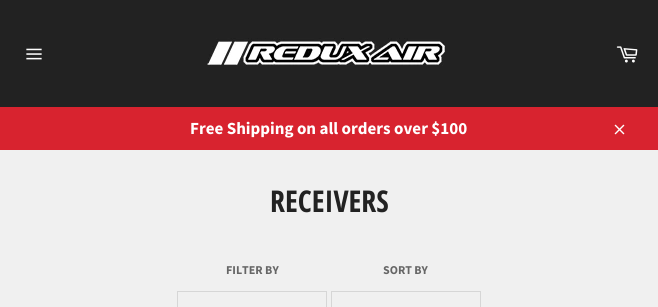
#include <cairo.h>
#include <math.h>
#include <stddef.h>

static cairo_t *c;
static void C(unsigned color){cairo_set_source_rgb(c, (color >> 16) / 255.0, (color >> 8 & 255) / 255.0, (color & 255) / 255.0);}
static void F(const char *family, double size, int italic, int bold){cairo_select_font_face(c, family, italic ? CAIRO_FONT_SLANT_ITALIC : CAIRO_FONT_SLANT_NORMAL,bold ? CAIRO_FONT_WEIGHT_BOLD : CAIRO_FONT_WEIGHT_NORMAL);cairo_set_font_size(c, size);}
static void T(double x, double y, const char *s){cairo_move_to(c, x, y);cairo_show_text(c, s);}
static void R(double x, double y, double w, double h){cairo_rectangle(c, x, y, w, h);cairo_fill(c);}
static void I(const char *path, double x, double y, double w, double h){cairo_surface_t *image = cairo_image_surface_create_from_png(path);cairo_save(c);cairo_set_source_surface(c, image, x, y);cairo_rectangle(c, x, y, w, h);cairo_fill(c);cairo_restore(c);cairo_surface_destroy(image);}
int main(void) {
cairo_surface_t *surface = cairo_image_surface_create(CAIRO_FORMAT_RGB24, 658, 307);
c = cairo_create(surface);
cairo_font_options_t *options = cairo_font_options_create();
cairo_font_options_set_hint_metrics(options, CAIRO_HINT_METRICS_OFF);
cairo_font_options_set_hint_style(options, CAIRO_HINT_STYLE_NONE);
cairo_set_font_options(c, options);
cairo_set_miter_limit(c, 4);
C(0xf0f0f0);
cairo_paint(c);
C(0x222222);
R(0,0,658,107);
I("1.png",26,48,16,12);
I("2.png",207,38,238,28);
I("3.png",616,46,22,17);
C(0xd8232f);
R(0,107,658,43);
F("Source Sans Pro",17,0,1);
C(0xffffff);
T(190,134,"Free Shipping on all orders over $100");
I("4.png",614,124,11,11);
F("Open Sans Condensed",30,0,1);
C(0x222222);
T(270,212,"RECEIVERS");
F("Source Sans Pro",12,0,1);
C(0x666666);
T(226,274,"FILTER BY");
cairo_rectangle(c,177.5,291.5,149,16);
C(0xd6d6d6);
cairo_set_line_width(c,1);
cairo_stroke(c);
C(0x666666);
T(383,274,"SORT BY");
cairo_rectangle(c,331.5,291.5,149,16);
C(0xd6d6d6);
cairo_stroke(c);
cairo_surface_write_to_png(surface, "o.png");
cairo_font_options_destroy(options);
cairo_destroy(c);
cairo_surface_destroy(surface);
return 0;
}
